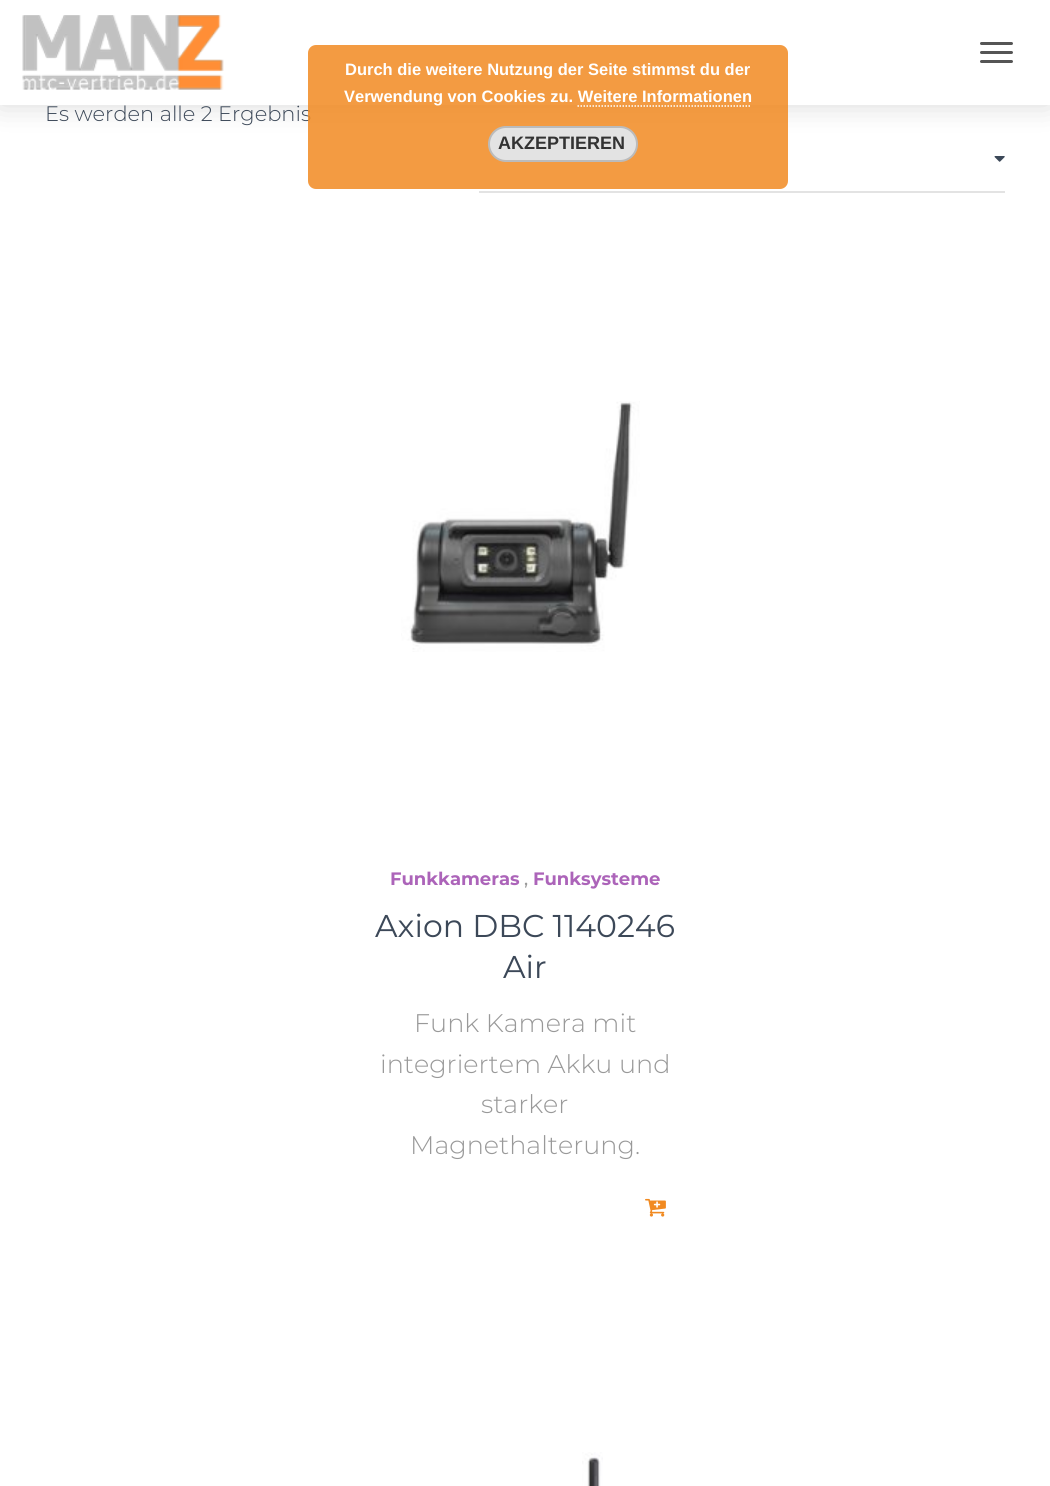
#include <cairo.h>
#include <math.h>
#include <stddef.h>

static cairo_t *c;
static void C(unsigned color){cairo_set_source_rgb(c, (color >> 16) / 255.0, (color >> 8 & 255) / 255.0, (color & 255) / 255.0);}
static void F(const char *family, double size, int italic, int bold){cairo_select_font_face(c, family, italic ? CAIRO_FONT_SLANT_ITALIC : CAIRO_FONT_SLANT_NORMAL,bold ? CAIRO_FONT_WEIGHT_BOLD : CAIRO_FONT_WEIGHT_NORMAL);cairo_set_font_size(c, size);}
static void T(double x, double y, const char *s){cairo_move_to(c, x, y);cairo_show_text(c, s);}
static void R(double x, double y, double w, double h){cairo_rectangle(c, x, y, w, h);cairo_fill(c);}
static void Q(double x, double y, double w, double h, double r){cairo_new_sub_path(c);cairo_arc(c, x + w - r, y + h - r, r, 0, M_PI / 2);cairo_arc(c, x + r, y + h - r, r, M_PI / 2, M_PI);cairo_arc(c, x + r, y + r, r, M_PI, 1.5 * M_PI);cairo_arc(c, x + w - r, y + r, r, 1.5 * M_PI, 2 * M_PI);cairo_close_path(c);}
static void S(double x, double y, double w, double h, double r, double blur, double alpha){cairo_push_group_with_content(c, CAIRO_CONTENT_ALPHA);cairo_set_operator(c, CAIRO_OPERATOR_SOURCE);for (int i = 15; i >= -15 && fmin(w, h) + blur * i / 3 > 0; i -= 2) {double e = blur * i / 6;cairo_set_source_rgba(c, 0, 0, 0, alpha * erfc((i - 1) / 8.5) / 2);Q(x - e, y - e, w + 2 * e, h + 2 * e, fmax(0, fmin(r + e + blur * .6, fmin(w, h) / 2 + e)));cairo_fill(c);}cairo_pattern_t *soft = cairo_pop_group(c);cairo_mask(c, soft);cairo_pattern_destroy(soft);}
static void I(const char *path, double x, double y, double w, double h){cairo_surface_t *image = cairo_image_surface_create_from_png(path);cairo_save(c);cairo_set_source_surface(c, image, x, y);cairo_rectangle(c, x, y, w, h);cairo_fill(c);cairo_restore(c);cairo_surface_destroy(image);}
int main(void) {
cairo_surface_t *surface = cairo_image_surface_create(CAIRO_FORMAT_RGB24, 1050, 1486);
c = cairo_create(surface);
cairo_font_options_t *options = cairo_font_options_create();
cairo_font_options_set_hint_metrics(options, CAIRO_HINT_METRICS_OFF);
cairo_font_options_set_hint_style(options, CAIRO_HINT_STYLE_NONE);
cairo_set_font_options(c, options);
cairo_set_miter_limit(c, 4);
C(0xffffff);
cairo_paint(c);
C(0x000000);
S(0,0,1050,105,0,15,.15);
C(0xffffff);
R(0,0,1050,105);
F("Montserrat Light",21,0,0);
C(0x3c4858);
T(45,121,"Es werden alle 2 Ergebnis");
cairo_set_source_rgba(c,0.945,0.541,0.129,0.85);
Q(308,45,480,144,8);
cairo_fill(c);
F("Liberation Sans",16.5,0,1);
C(0xffffff);
T(345,75,"Durch die weitere Nutzung der Seite stimmst du der");
T(344,102,"Verwendung von Cookies zu. Weitere Informationen");
cairo_new_path(c);
cairo_move_to(c,577.5,106);
cairo_line_to(c,751.5,106);
cairo_set_line_width(c,1.5);
cairo_set_dash(c,(double[]){1.5,1.5},2,0);
cairo_stroke(c);
C(0xe3e3e3);
Q(489,127,148,34,17);
cairo_fill_preserve(c);
C(0xbbbbbb);
cairo_set_line_width(c,2);
cairo_set_dash(c,NULL,0,0);
cairo_stroke(c);
F("Liberation Sans",18,0,1);
C(0x333333);
T(498,149,"AKZEPTIEREN");
I("1.png",22,15,202,75);
C(0x555555);
Q(980,42,33,3,1.5);
cairo_fill(c);
Q(980,51,33,3,1.5);
cairo_fill(c);
Q(980,60,33,3,1.5);
cairo_fill(c);
I("2.png",994,156,11,6);
C(0xe3e3e3);
R(479,191,526,2);
I("3.png",401,401,239,251);
F("Montserrat",18,0,1);
C(0xac64b9);
T(390,885,"Funkkameras");
F("Montserrat Medium",18,0,0);
C(0x999999);
T(524,885,",");
F("Montserrat",18,0,1);
C(0xac64b9);
T(533,885,"Funksysteme");
F("Montserrat",31.5,0,0);
C(0x3c4858);
T(375,937,"Axion DBC 1140246");
T(503,978,"Air");
F("Montserrat Light",25.5,0,0);
C(0x999999);
T(414,1032,"Funk Kamera mit");
T(380,1073,"integriertem Akku und");
T(481,1113,"starker");
T(410,1154,"Magnethalterung.");
I("4.png",645,1198,21,19);
I("5.png",582,1452,21,34);
cairo_surface_write_to_png(surface, "o.png");
cairo_font_options_destroy(options);
cairo_destroy(c);
cairo_surface_destroy(surface);
return 0;
}
